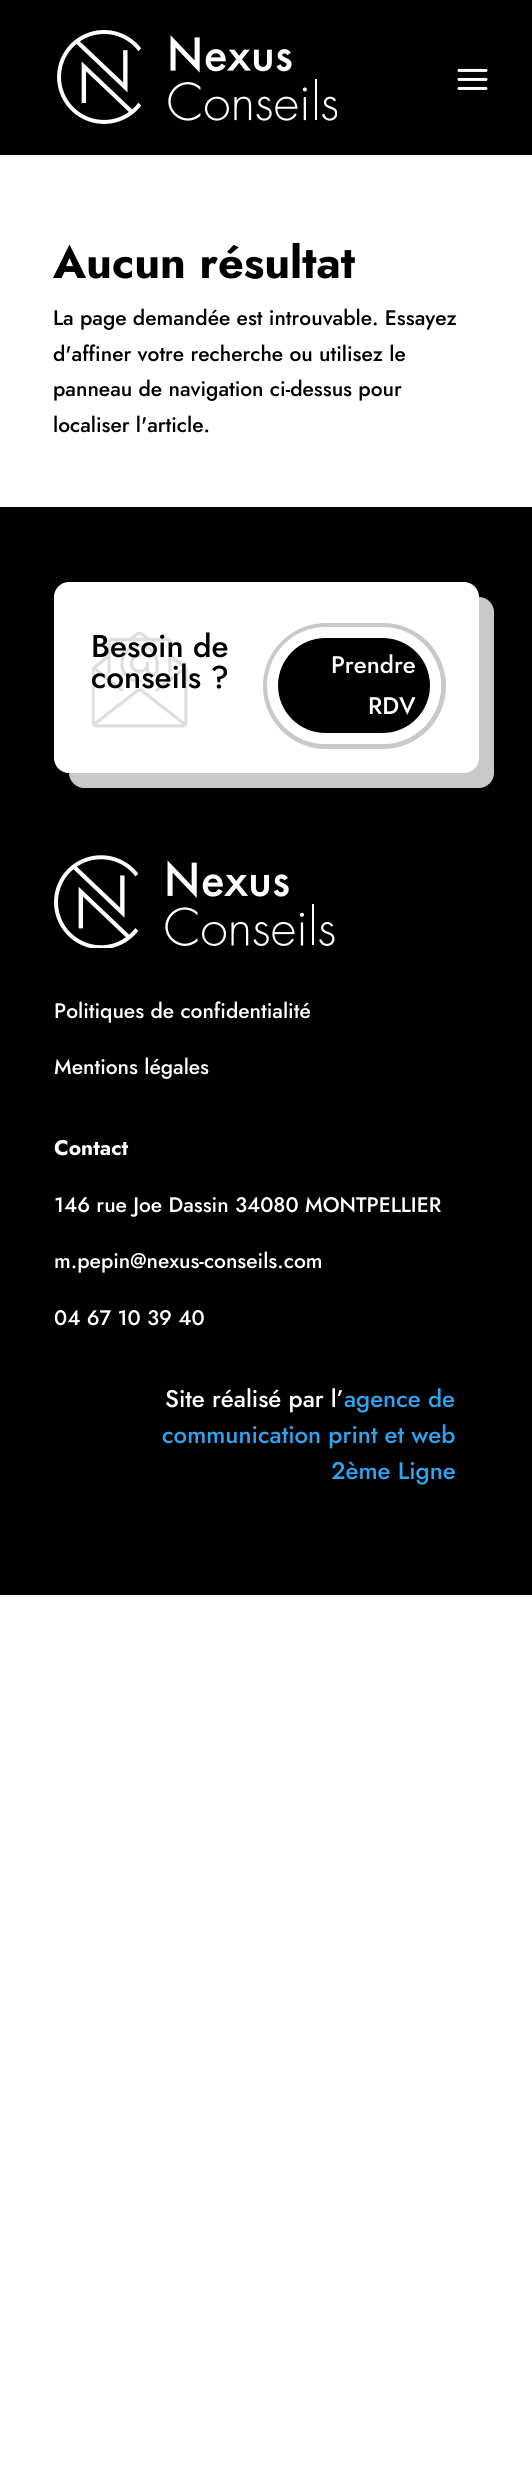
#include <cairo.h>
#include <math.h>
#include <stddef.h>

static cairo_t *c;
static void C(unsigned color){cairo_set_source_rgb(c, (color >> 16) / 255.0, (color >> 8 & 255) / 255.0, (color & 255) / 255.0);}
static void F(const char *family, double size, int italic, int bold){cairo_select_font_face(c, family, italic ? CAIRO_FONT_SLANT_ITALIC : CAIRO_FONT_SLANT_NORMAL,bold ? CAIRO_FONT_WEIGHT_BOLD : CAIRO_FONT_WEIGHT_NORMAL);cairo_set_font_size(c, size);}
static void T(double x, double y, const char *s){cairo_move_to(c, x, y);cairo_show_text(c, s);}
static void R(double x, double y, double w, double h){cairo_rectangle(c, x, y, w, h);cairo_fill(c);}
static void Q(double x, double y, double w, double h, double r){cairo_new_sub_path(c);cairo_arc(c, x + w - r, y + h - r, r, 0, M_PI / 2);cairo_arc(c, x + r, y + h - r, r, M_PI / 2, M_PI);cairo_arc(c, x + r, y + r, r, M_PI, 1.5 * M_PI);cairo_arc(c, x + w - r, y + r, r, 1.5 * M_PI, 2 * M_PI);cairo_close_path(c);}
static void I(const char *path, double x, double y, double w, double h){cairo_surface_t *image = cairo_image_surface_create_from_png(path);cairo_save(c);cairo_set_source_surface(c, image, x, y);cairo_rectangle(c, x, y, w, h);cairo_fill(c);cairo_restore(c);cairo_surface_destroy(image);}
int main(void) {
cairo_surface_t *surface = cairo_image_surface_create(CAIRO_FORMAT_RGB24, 532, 2476);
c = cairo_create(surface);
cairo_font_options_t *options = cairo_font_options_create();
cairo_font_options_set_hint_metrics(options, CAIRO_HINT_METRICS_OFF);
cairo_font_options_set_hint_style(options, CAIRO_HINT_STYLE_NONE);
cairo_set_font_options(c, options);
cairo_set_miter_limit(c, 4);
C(0xffffff);
cairo_paint(c);
C(0x000000);
R(0,0,532,155);
I("1.png",57,30,280,94);
I("2.png",457,68,31,22);
F("Jost",45,0,1);
T(53,278,"Aucun résultat");
F("Jost Medium",21,0,0);
T(53,325,"La page demandée est introuvable. Essayez");
T(53,361,"d'affiner votre recherche ou utilisez le");
T(53,396,"panneau de navigation ci-dessus pour");
T(53,432,"localiser l'article.");
R(0,507,532,1088);
C(0xc9c9c9);
cairo_new_path(c);
cairo_move_to(c,69,772);
cairo_line_to(c,69,773);
cairo_curve_to(c,69,781,76,788,84,788);
cairo_line_to(c,479,788);
cairo_curve_to(c,487,788,494,781,494,773);
cairo_line_to(c,494,612);
cairo_curve_to(c,494,604,487,597,479,597);
cairo_line_to(c,478,597);
cairo_line_to(c,478,758);
cairo_curve_to(c,478,766,472,772,464,772);
cairo_close_path(c);
cairo_fill(c);
C(0xffffff);
Q(54,582,425,191,15);
cairo_fill(c);
I("3.png",92,632,96,96);
F("Jost Medium",31.5,0,0);
C(0x000000);
T(91,657,"Besoin de");
T(91,688,"conseils ?");
Q(265.5,625.5,178,121,60.5);
C(0xc9c9c9);
cairo_set_line_width(c,5);
cairo_stroke(c);
C(0x000000);
Q(272.5,632.5,163,106,53);
cairo_fill_preserve(c);
C(0xffffff);
cairo_set_line_width(c,11);
cairo_stroke(c);
F("Jost Medium",24,0,0);
T(331,673,"Prendre");
T(368,714,"RDV");
I("4.png",54,855,281,93);
F("Jost Medium",21,0,0);
T(54,1018,"Politiques de confidentialité");
T(54,1074,"Mentions légales");
F("Jost",21,0,1);
T(54,1155,"Contact");
F("Jost Medium",21,0,0);
T(54,1212,"146 rue Joe Dassin 34080 MONTPELLIER");
T(54,1268,"m.pepin@nexus-conseils.com");
T(54,1325,"04 67 10 39 40");
F("Jost Medium",24,0,0);
T(165,1407,"Site réalisé par l’");
C(0x2ea3f2);
T(344,1407,"agence de");
T(162,1443,"communication print et web");
T(331,1479,"2ème Ligne");
cairo_surface_write_to_png(surface, "o.png");
cairo_font_options_destroy(options);
cairo_destroy(c);
cairo_surface_destroy(surface);
return 0;
}
